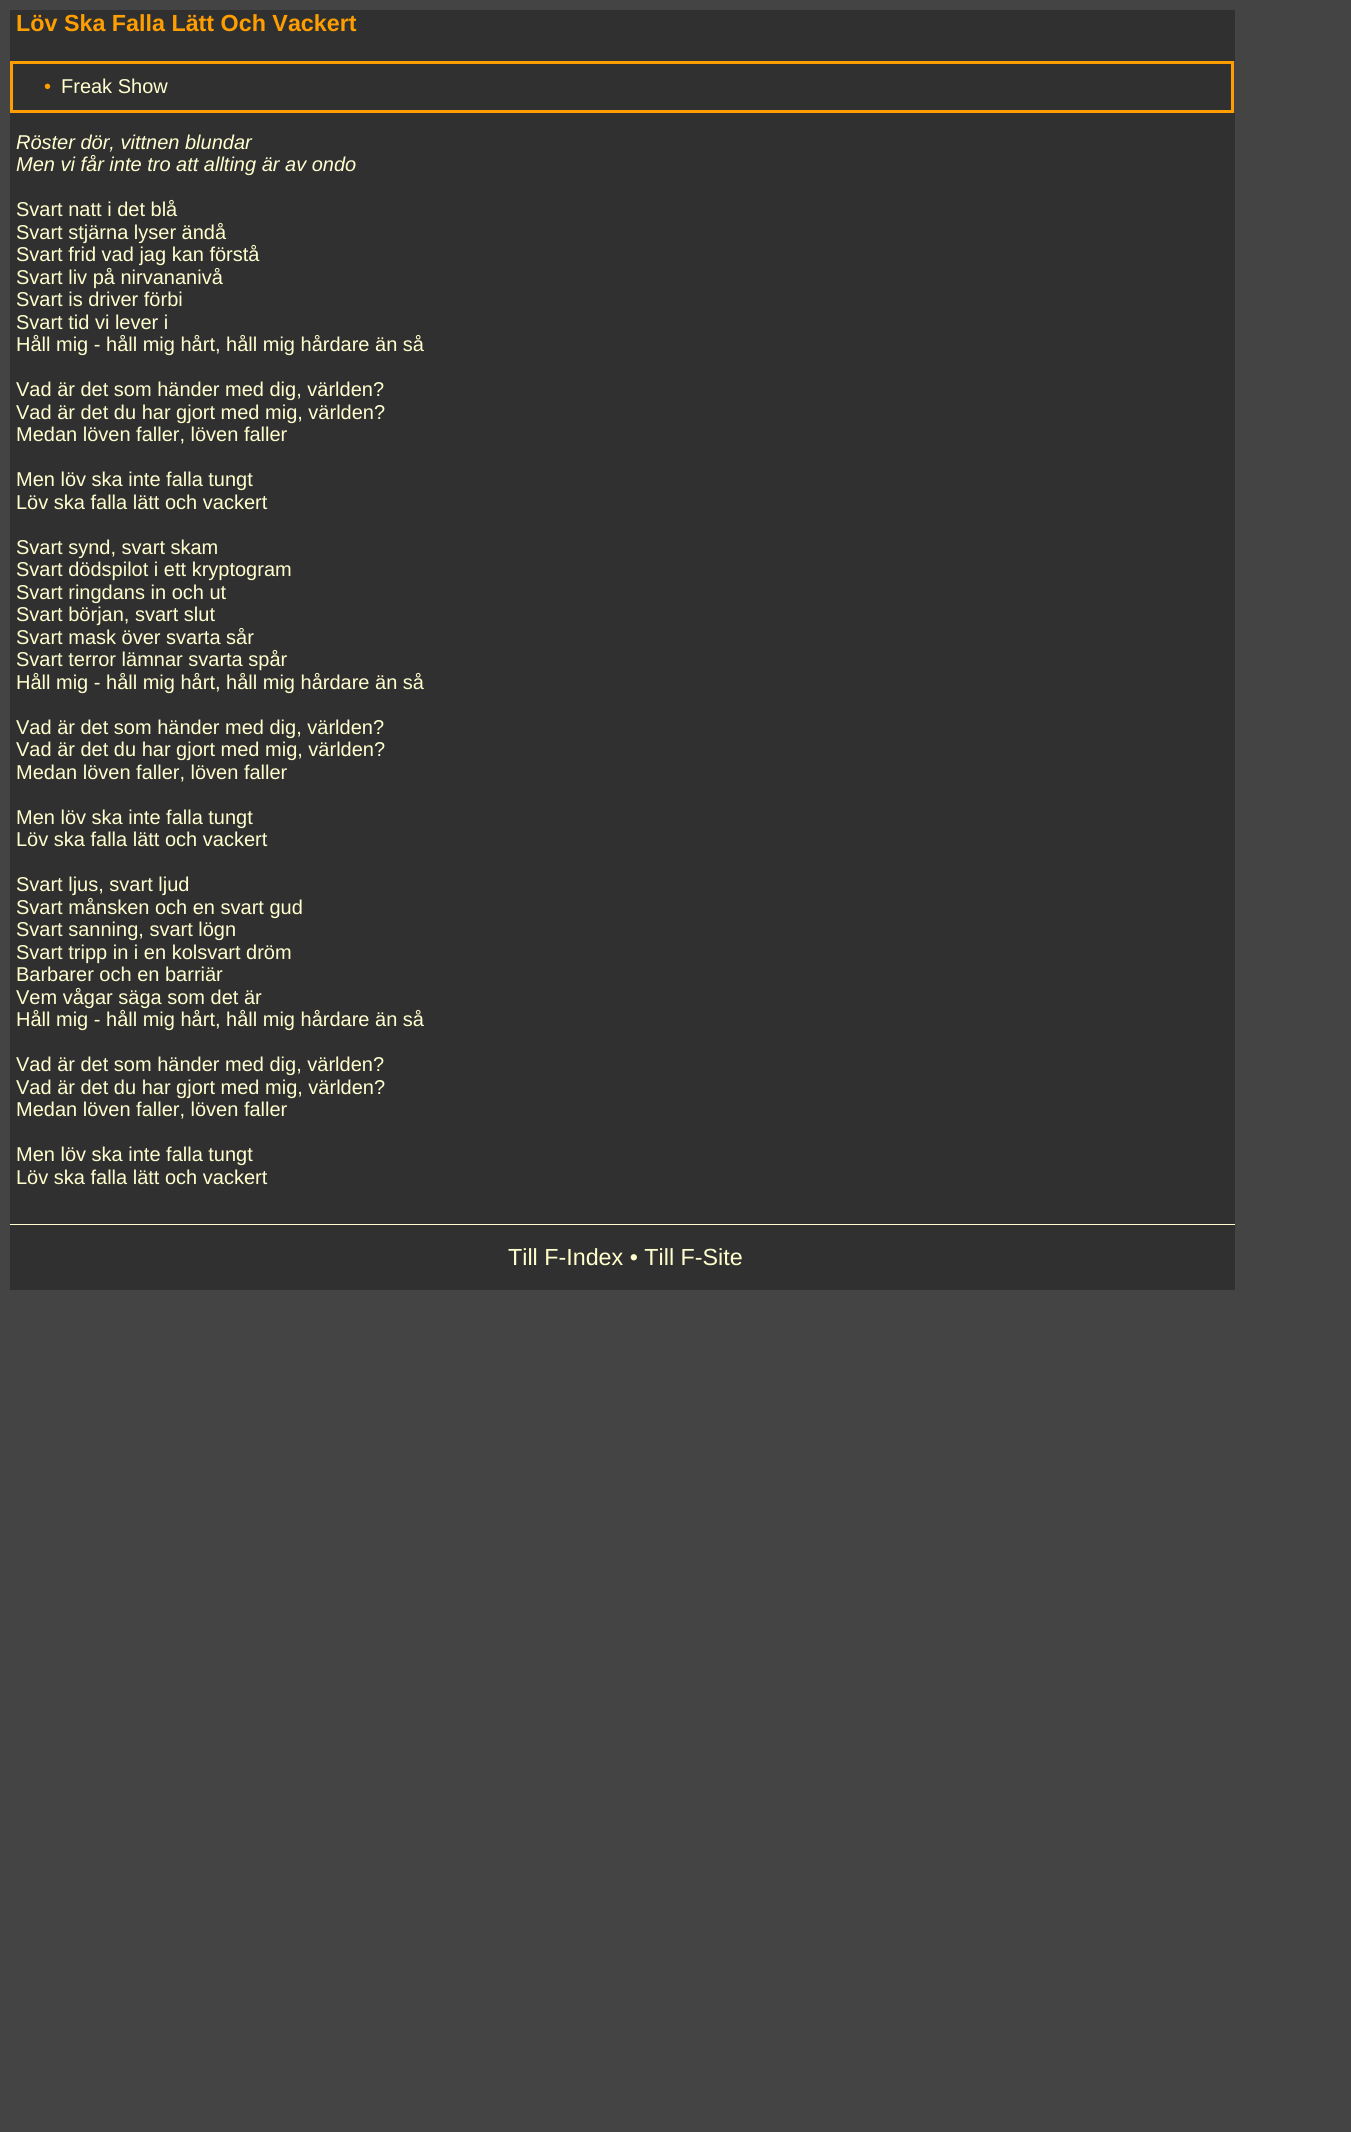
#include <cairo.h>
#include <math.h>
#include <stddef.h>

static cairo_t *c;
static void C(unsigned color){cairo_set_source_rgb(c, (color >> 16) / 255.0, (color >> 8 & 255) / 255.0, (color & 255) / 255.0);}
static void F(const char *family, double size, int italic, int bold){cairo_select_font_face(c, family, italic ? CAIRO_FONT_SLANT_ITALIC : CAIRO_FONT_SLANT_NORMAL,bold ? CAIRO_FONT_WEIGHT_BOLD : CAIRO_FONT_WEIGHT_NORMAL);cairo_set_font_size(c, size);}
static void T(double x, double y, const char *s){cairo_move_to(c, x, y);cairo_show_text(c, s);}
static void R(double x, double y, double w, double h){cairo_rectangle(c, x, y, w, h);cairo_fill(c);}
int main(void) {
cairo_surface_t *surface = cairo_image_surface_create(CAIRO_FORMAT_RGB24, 1351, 2132);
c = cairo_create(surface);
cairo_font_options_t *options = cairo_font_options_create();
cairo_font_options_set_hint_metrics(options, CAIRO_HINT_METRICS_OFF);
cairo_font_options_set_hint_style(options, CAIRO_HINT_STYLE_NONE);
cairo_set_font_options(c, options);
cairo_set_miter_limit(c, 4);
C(0x444444);
cairo_paint(c);
C(0x313031);
R(10,10,1225,51);
F("Liberation Sans",23.3,0,1);
C(0xff9e00);
T(16,31,"Löv Ska Falla Lätt Och Vackert");
C(0x313031);
cairo_rectangle(c,11.5,62.5,1221,49);
cairo_fill_preserve(c);
C(0xff9e00);
cairo_set_line_width(c,3);
cairo_stroke(c);
F("Liberation Sans",20,0,0);
T(44,93,"•");
C(0xffffce);
T(61,93,"Freak Show");
C(0x313031);
R(10,113,1225,1111);
F("Liberation Sans",20,1,0);
C(0xffffce);
T(16,149,"Röster dör, vittnen blundar");
T(16,171,"Men vi får inte tro att allting är av ondo");
F("Liberation Sans",20,0,0);
T(16,216,"Svart natt i det blå");
T(16,239,"Svart stjärna lyser ändå");
T(16,261,"Svart frid vad jag kan förstå");
T(16,284,"Svart liv på nirvananivå");
T(16,306,"Svart is driver förbi");
T(16,329,"Svart tid vi lever i");
T(16,351,"Håll mig - håll mig hårt, håll mig hårdare än så");
T(16,396,"Vad är det som händer med dig, världen?");
T(16,419,"Vad är det du har gjort med mig, världen?");
T(16,441,"Medan löven faller, löven faller");
T(16,486,"Men löv ska inte falla tungt");
T(16,509,"Löv ska falla lätt och vackert");
T(16,554,"Svart synd, svart skam");
T(16,576,"Svart dödspilot i ett kryptogram");
T(16,599,"Svart ringdans in och ut");
T(16,621,"Svart början, svart slut");
T(16,644,"Svart mask över svarta sår");
T(16,666,"Svart terror lämnar svarta spår");
T(16,689,"Håll mig - håll mig hårt, håll mig hårdare än så");
T(16,734,"Vad är det som händer med dig, världen?");
T(16,756,"Vad är det du har gjort med mig, världen?");
T(16,779,"Medan löven faller, löven faller");
T(16,824,"Men löv ska inte falla tungt");
T(16,846,"Löv ska falla lätt och vackert");
T(16,891,"Svart ljus, svart ljud");
T(16,914,"Svart månsken och en svart gud");
T(16,936,"Svart sanning, svart lögn");
T(16,959,"Svart tripp in i en kolsvart dröm");
T(16,981,"Barbarer och en barriär");
T(16,1004,"Vem vågar säga som det är");
T(16,1026,"Håll mig - håll mig hårt, håll mig hårdare än så");
T(16,1071,"Vad är det som händer med dig, världen?");
T(16,1094,"Vad är det du har gjort med mig, världen?");
T(16,1116,"Medan löven faller, löven faller");
T(16,1161,"Men löv ska inte falla tungt");
T(16,1184,"Löv ska falla lätt och vackert");
C(0x313031);
R(10,1225,1225,65);
C(0xffffce);
R(10,1224,1225,1);
F("Liberation Sans",23.3,0,0);
T(508,1265,"Till F-Index • Till F-Site");
cairo_surface_write_to_png(surface, "o.png");
cairo_font_options_destroy(options);
cairo_destroy(c);
cairo_surface_destroy(surface);
return 0;
}
